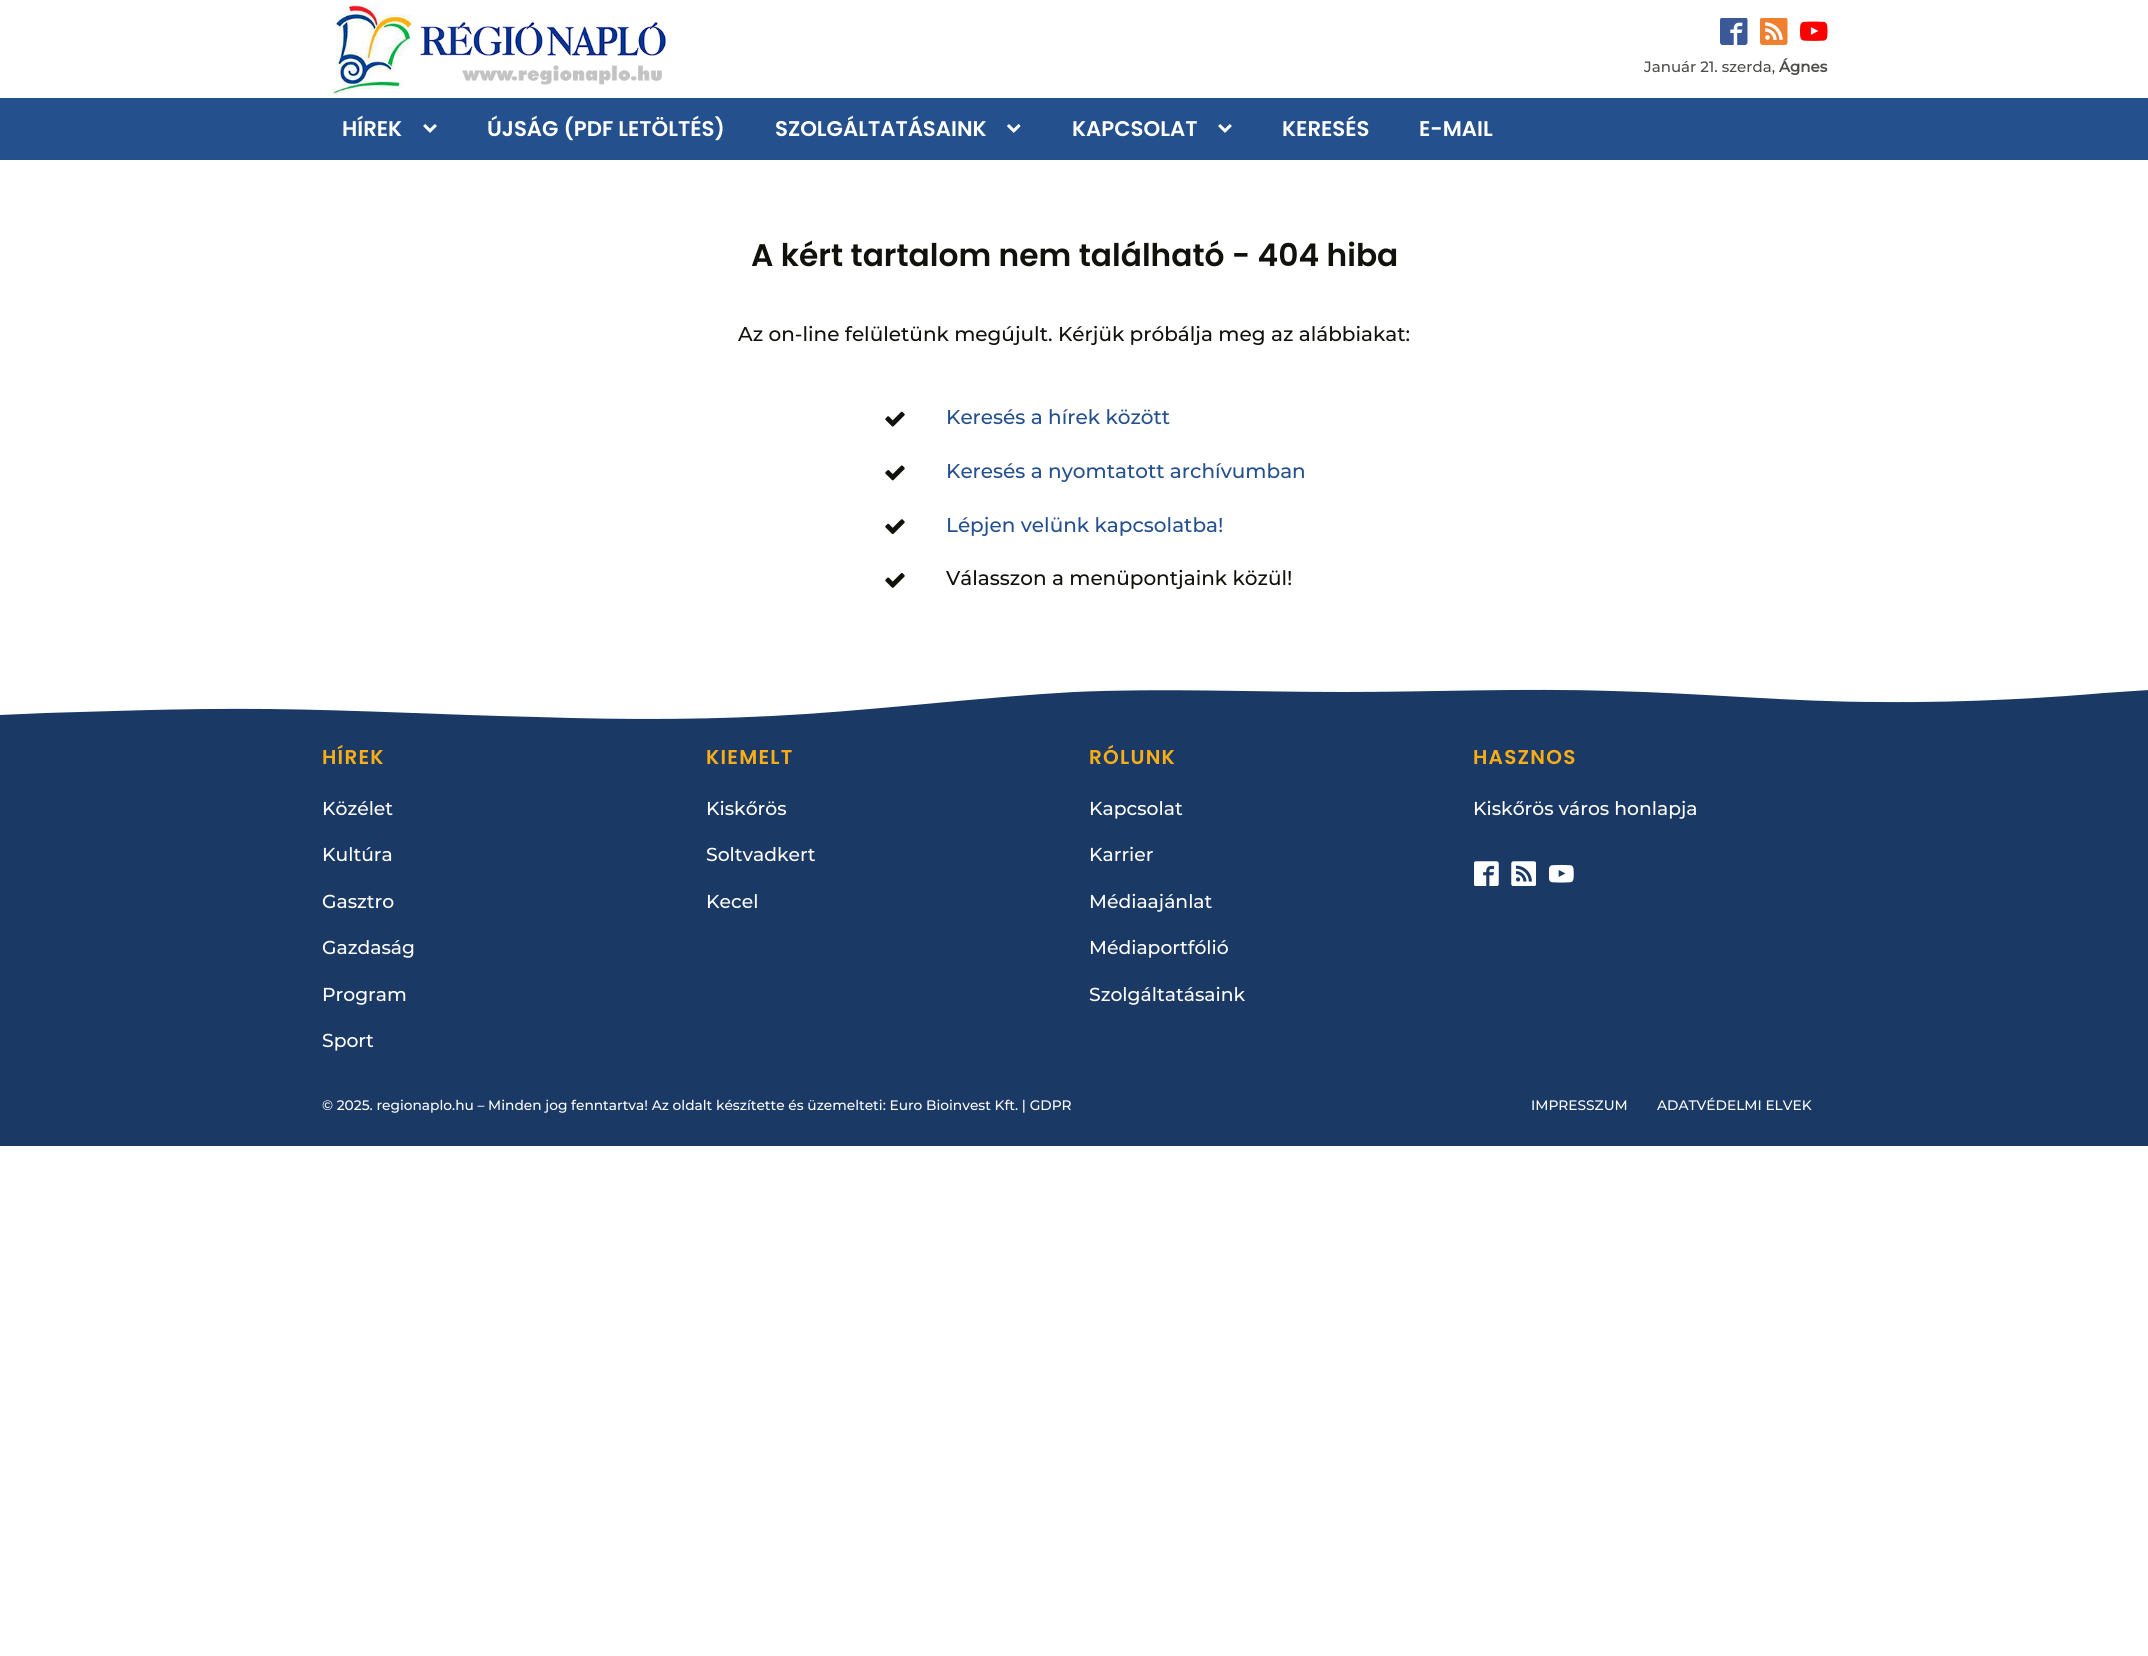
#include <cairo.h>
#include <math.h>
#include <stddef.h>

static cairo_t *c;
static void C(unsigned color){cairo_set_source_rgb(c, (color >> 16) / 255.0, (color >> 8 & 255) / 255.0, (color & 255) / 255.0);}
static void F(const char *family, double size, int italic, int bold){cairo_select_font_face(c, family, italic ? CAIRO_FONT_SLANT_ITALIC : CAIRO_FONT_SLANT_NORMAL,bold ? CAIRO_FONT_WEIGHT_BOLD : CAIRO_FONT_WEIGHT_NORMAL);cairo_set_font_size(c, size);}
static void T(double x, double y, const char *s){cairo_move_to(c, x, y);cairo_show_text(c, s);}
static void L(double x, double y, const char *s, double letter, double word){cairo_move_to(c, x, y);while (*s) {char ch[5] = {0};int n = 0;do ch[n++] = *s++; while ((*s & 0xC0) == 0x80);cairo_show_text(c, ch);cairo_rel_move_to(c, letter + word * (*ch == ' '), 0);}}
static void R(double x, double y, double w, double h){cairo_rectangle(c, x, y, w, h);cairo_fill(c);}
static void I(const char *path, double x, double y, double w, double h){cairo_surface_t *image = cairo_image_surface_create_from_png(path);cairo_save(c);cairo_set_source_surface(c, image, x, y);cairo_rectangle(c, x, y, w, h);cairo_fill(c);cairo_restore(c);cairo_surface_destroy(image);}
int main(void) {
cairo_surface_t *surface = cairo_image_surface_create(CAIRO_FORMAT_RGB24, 2148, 1656);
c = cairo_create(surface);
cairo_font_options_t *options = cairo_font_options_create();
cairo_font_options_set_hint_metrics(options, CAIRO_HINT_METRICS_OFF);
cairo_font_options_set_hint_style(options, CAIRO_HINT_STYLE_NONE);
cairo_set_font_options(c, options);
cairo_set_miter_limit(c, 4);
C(0xffffff);
cairo_paint(c);
I("1.png",328,5,339,91);
I("2.png",1720,18,28,27);
I("3.png",1760,18,28,27);
I("4.png",1800,21,28,20);
F("Montserrat Thin",15,0,0);
C(0x4d4d4a);
T(1644,72,"Január 21. szerda,");
F("Montserrat",15,0,1);
T(1779,72,"Ágnes");
C(0x25508e);
R(0,98,2148,62);
F("Poppins SemiBold",21.25,0,0);
C(0xffffff);
T(342,136,"HÍREK");
I("5.png",423,124,14,9);
T(487,136,"ÚJSÁG (PDF LETÖLTÉS)");
T(775,136,"SZOLGÁLTATÁSAINK");
I("6.png",1007,124,14,9);
T(1072,136,"KAPCSOLAT");
I("5.png",1218,124,14,9);
T(1282,136,"KERESÉS");
T(1419,136,"E-MAIL");
F("Poppins SemiBold",31.25,0,0);
C(0x12120d);
T(751,266,"A kért tartalom nem található - 404 hiba");
F("Montserrat Thin",20,0,0);
T(738,341,"Az on-line felületünk megújult. Kérjük próbálja meg az alábbiakat:");
I("7.png",885,411,20,16);
C(0x25508e);
T(946,424,"Keresés a hírek között");
I("8.png",885,465,20,16);
T(946,478,"Keresés a nyomtatott archívumban");
I("9.png",885,519,20,16);
T(946,532,"Lépjen velünk kapcsolatba!");
I("10.png",885,573,20,15);
C(0x12120d);
T(946,585,"Válasszon a menüpontjaink közül!");
C(0x1a3965);
R(0,689,2148,457);
C(0xffffff);
cairo_new_path(c);
cairo_move_to(c,0,715);
cairo_line_to(c,45,713);
cairo_curve_to(c,90,712,179,708,269,709);
cairo_curve_to(c,358,710,448,715,537,717);
cairo_curve_to(c,627,720,716,720,806,714);
cairo_curve_to(c,895,708,985,697,1074,692);
cairo_curve_to(c,1164,688,1253,692,1343,692);
cairo_curve_to(c,1432,692,1522,688,1612,691);
cairo_curve_to(c,1701,693,1791,702,1880,702);
cairo_curve_to(c,1970,703,2059,697,2104,693);
cairo_line_to(c,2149,690);
cairo_line_to(c,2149,680);
cairo_line_to(c,0,680);
cairo_close_path(c);
cairo_fill(c);
F("Poppins SemiBold",20,0,0);
C(0xf9ae18);
L(322,764,"HÍREK",1.25,0);
F("Montserrat Thin",18.75,0,0);
C(0xffffff);
T(322,815,"Közélet");
T(322,861,"Kultúra");
T(322,908,"Gasztro");
T(322,954,"Gazdaság");
T(322,1001,"Program");
T(322,1047,"Sport");
F("Poppins SemiBold",20,0,0);
C(0xf9ae18);
L(706,764,"KIEMELT",1.25,0);
F("Montserrat Thin",18.75,0,0);
C(0xffffff);
T(706,815,"Kiskőrös");
T(706,861,"Soltvadkert");
T(706,908,"Kecel");
F("Poppins SemiBold",20,0,0);
C(0xf9ae18);
L(1089,764,"RÓLUNK",1.25,0);
F("Montserrat Thin",18.75,0,0);
C(0xffffff);
T(1089,815,"Kapcsolat");
T(1089,861,"Karrier");
T(1089,908,"Médiaajánlat");
T(1089,954,"Médiaportfólió");
T(1089,1001,"Szolgáltatásaink");
F("Poppins SemiBold",20,0,0);
C(0xf9ae18);
L(1473,764,"HASZNOS",1.25,0);
F("Montserrat Thin",18.75,0,0);
C(0xffffff);
T(1473,815,"Kiskőrös város honlapja");
I("11.png",1474,861,25,25);
I("12.png",1511,861,25,25);
I("13.png",1549,864,25,19);
F("Montserrat Thin",13.75,0,0);
T(322,1110,"© 2025. regionaplo.hu – Minden jog fenntartva! Az oldalt készítette és üzemelteti: Euro Bioinvest Kft. | GDPR");
T(1531,1110,"IMPRESSZUM");
T(1657,1110,"ADATVÉDELMI ELVEK");
cairo_surface_write_to_png(surface, "o.png");
cairo_font_options_destroy(options);
cairo_destroy(c);
cairo_surface_destroy(surface);
return 0;
}
